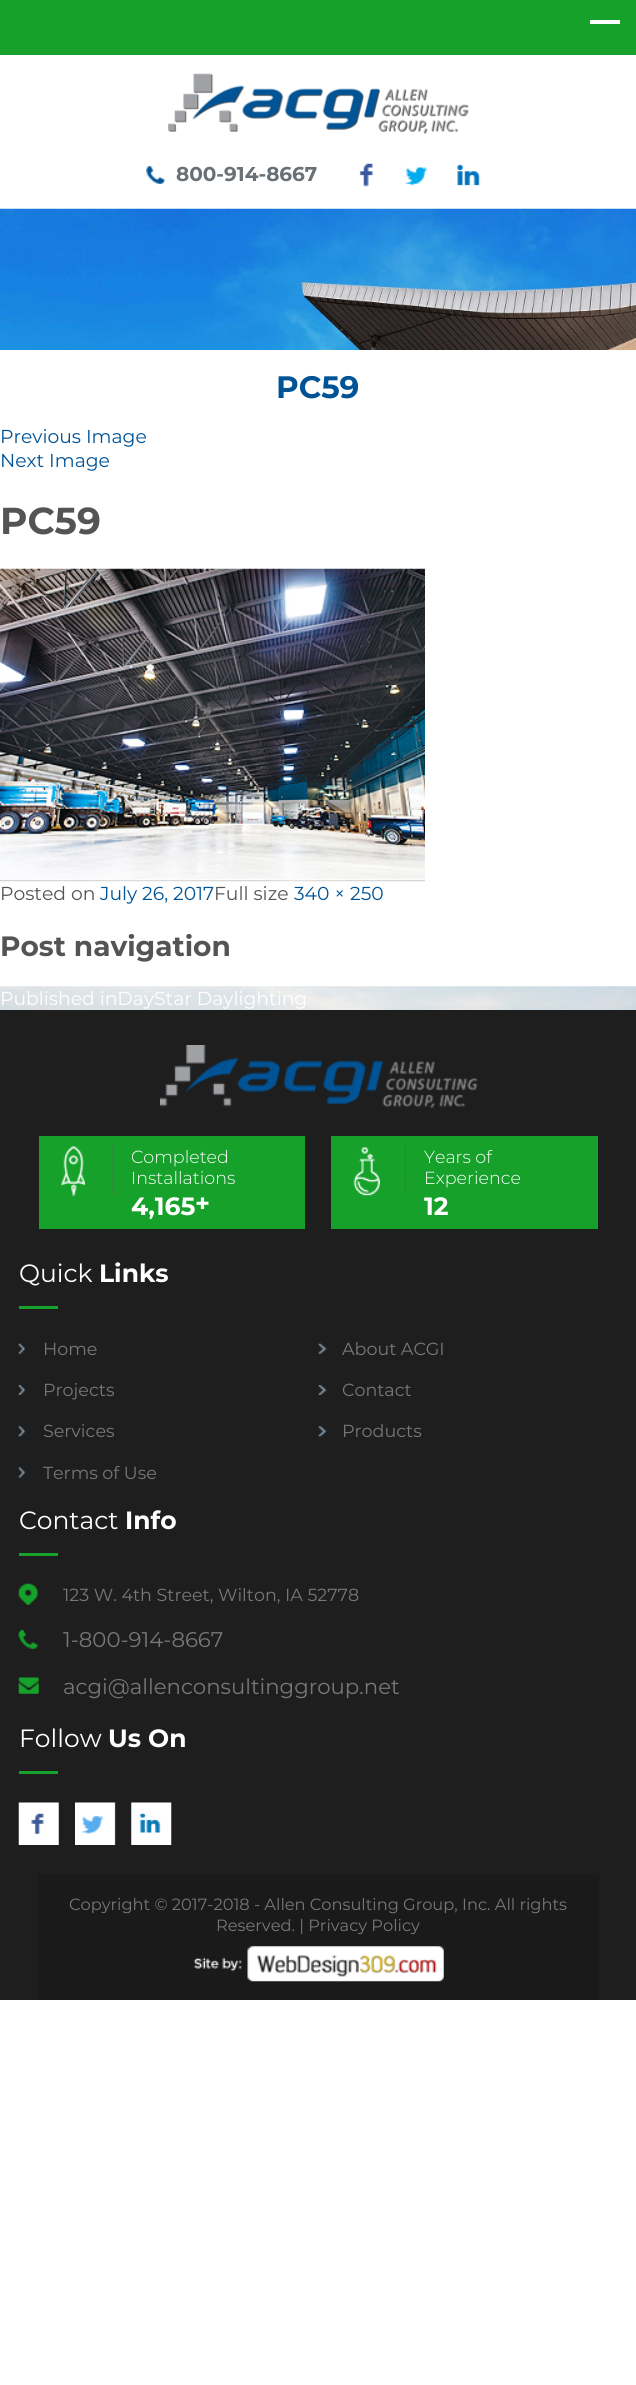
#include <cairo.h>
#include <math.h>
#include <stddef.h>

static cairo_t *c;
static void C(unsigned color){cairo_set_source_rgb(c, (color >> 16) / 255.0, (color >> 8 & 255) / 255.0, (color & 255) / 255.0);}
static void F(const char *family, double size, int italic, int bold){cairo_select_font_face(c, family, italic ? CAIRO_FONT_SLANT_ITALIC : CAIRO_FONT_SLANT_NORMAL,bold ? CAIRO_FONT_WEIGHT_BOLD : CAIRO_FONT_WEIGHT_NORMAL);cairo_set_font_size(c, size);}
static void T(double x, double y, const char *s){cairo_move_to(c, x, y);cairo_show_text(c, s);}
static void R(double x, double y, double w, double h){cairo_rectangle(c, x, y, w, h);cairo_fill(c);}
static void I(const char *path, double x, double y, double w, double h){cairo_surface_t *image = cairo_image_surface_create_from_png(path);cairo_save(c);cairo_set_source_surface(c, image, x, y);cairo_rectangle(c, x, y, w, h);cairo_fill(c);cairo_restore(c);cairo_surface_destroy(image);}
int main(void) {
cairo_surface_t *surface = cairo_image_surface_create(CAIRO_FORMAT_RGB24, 636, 2385);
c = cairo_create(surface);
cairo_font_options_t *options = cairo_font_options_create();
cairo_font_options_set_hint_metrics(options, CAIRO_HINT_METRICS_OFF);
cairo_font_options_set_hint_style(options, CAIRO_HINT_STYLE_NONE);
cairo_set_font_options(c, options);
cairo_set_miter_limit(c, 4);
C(0xffffff);
cairo_paint(c);
C(0x16a12a);
R(0,0,636,55);
C(0xffffff);
R(590,20,30,4);
I("1.png",168,73,301,61);
I("2.png",146,166,19,18);
F("Montserrat",20,0,1);
C(0x697177);
T(176,181,"800-914-8667");
I("3.png",359,163,14,24);
I("4.png",405,167,23,19);
I("5.png",457,164,24,22);
I("6.png",0,208,636,142);
F("Montserrat",31,0,1);
C(0x005395);
T(276,398,"PC59");
F("Montserrat",18.75,0,0);
T(0,443,"Previous Image");
T(0,467,"Next Image");
F("Montserrat",37.5,0,1);
C(0x545454);
T(0,534,"PC59");
I("7.png",0,568,425,314);
F("Montserrat",18.75,0,0);
T(0,900,"Posted on");
C(0x005395);
T(100,900,"July 26, 2017");
C(0x545454);
T(214,900,"Full size");
C(0x005395);
T(294,900,"340 × 250");
F("Montserrat",28,0,1);
C(0x545454);
T(0,956,"Post navigation");
I("8.png",0,986,636,24);
F("Montserrat",18.75,0,0);
C(0xffffff);
T(0,1005,"Published inDayStar Daylighting");
C(0x1e1e1e);
R(0,1010,636,865);
I("9.png",160,1045,318,63);
C(0x16a12a);
R(39,1136,266,93);
cairo_new_path(c);
cairo_move_to(c,113,1146);
cairo_line_to(c,113,1196);
C(0x5d5d5d);
cairo_set_line_width(c,1.2);
cairo_set_dash(c,(double[]){1.25,1.25},2,0);
cairo_stroke(c);
I("10.png",61,1146,24,51);
F("Montserrat Light",17.5,0,0);
C(0xffffff);
T(131,1163,"Completed");
T(131,1184,"Installations");
F("Montserrat",25,0,1);
T(131,1215,"4,165");
T(195,1212,"+");
C(0x16a12a);
R(331,1136,267,93);
cairo_new_path(c);
cairo_move_to(c,405.5,1146);
cairo_line_to(c,405.5,1196);
C(0x5d5d5d);
cairo_stroke(c);
I("11.png",353,1146,27,50);
F("Montserrat Light",17.5,0,0);
C(0xffffff);
T(424,1163,"Years of");
T(424,1184,"Experience");
F("Montserrat",25,0,1);
T(424,1215,"12");
F("Montserrat",25,0,0);
T(19,1282,"Quick");
F("Montserrat",25,0,1);
T(99,1282,"Links");
C(0x16a12a);
R(19,1306,39,3);
I("12.png",18,1343,7,11);
F("Montserrat",17.5,0,0);
C(0x777777);
T(43,1355,"Home");
I("13.png",318,1343,9,11);
T(342,1355,"About ACGI");
I("14.png",18,1385,7,10);
T(43,1396,"Projects");
I("15.png",318,1385,9,10);
T(342,1396,"Contact");
I("16.png",18,1426,7,11);
T(43,1437,"Services");
I("17.png",318,1426,9,11);
T(342,1437,"Products");
I("18.png",18,1467,7,11);
T(43,1479,"Terms of Use");
F("Montserrat",25,0,0);
C(0xffffff);
T(19,1529,"Contact");
F("Montserrat",25,0,1);
T(125,1529,"Info");
C(0x16a12a);
R(19,1553,39,3);
I("19.png",18,1583,20,22);
F("Montserrat",17.5,0,0);
C(0x777777);
T(63,1601,"123 W. 4th Street, Wilton, IA 52778");
I("20.png",18,1630,20,19);
F("Montserrat",21.25,0,0);
T(63,1647,"1-800-914-8667");
I("21.png",18,1677,21,17);
T(63,1694,"acgi@allenconsultinggroup.net");
F("Montserrat",25,0,0);
C(0xffffff);
T(19,1747,"Follow");
F("Montserrat",25,0,1);
T(108,1747,"Us On");
C(0x16a12a);
R(19,1771,39,3);
I("22.png",18,1802,41,43);
I("23.png",75,1802,41,43);
I("24.png",131,1802,41,43);
C(0x1a1a1a);
R(38,1875,561,125);
C(0x1e1e1e);
R(599,1875,37,125);
R(0,1875,38,125);
F("Montserrat",16.25,0,0);
C(0x777777);
T(69,1910,"Copyright © 2017-2018 - Allen Consulting Group, Inc. All rights");
T(216,1931,"Reserved. | Privacy Policy");
I("25.png",193,1946,251,36);
cairo_surface_write_to_png(surface, "o.png");
cairo_font_options_destroy(options);
cairo_destroy(c);
cairo_surface_destroy(surface);
return 0;
}
